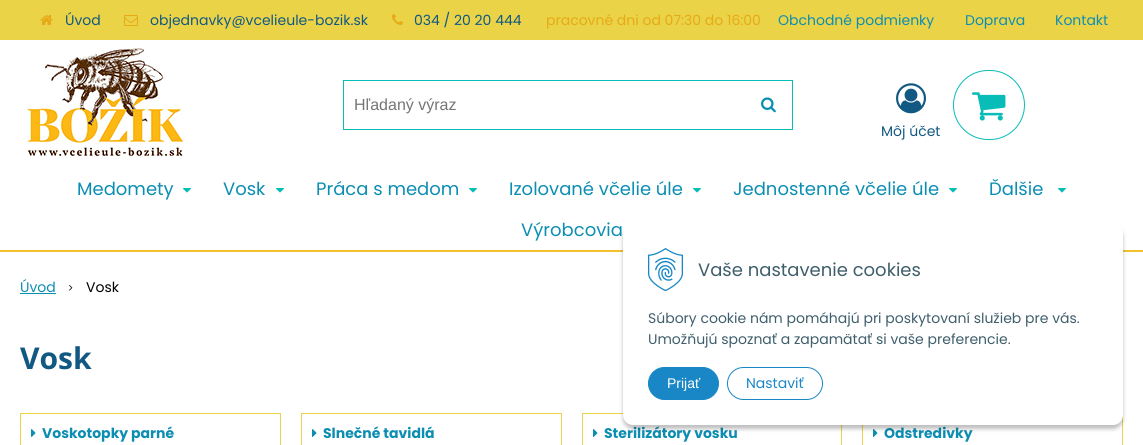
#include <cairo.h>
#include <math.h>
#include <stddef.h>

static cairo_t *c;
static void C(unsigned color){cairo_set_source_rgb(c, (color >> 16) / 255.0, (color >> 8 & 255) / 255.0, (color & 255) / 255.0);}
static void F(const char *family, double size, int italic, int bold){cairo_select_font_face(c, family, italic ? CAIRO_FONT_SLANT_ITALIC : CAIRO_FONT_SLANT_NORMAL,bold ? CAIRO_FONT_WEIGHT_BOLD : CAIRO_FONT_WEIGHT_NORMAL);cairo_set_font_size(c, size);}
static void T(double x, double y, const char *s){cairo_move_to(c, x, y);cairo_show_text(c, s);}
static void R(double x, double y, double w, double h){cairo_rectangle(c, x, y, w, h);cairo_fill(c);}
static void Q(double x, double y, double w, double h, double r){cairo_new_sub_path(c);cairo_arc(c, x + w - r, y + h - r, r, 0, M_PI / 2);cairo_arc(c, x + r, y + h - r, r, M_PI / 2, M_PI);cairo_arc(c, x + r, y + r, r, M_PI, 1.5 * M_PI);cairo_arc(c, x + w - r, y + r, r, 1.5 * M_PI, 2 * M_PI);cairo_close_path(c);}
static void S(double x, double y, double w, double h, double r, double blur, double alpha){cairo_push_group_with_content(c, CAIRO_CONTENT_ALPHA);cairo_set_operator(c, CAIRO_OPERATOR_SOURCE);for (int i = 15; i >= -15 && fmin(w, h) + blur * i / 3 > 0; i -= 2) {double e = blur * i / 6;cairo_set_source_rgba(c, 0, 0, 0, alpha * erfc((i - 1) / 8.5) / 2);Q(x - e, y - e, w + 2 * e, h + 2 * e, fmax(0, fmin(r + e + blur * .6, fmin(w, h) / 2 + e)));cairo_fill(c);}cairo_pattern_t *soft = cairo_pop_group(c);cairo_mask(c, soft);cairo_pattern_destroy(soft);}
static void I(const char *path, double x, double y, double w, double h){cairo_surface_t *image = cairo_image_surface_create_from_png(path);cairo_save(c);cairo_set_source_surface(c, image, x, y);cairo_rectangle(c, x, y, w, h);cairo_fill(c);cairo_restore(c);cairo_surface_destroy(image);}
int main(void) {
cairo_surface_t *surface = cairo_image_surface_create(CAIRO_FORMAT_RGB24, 1143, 445);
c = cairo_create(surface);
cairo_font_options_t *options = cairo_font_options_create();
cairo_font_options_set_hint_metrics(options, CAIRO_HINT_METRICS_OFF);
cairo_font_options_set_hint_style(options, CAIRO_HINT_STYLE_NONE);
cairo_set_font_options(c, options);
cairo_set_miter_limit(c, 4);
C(0xffffff);
cairo_paint(c);
C(0xead347);
R(0,0,1143,40);
I("1.png",40,15,13,10);
F("Poppins",14,0,0);
C(0x115882);
T(65,25,"Úvod");
I("2.png",124,15,14,11);
T(150,25,"objednavky@vcelieule-bozik.sk");
I("3.png",392,14,11,11);
T(414,25,"034 / 20 20 444");
C(0xe7a916);
T(546,25,"pracovné dni od 07:30 do 16:00");
I("4.png",26,48,162,111);
C(0x0c8eb2);
T(778,25,"Obchodné podmienky");
T(965,25,"Doprava");
T(1055,25,"Kontakt");
cairo_rectangle(c,343.5,80.5,449,49);
C(0x08bdb8);
cairo_set_line_width(c,1);
cairo_stroke(c);
F("Liberation Sans",16,0,0);
C(0x757575);
T(354,110,"Hľadaný výraz");
I("5.png",761,97,15,16);
Q(953.5,70.5,71,69,34.5);
C(0x08bdb8);
cairo_stroke(c);
I("6.png",972,92,34,29);
I("7.png",896,83,30,31);
F("Poppins",14,0,0);
C(0x115882);
T(881,136,"Môj účet");
C(0xf2c02c);
R(0,250,1143,2);
F("Poppins",18,0,0);
C(0x0c8eb2);
T(77,195,"Medomety");
I("8.png",183,188,8,5);
T(223,195,"Vosk");
I("8.png",276,188,8,5);
T(316,195,"Práca s medom");
I("8.png",469,188,8,5);
T(509,195,"Izolované včelie úle");
I("8.png",693,188,8,5);
T(733,195,"Jednostenné včelie úle");
I("8.png",949,188,8,5);
T(989,195,"Ďalšie");
I("8.png",1058,188,8,5);
T(521,236,"Výrobcovia");
F("Poppins",14,0,0);
T(20,292,"Úvod");
R(20,293,36,1);
I("9.png",69,285,4,6);
C(0x000000);
T(86,292,"Vosk");
F("Open Sans",30,0,1);
C(0x115882);
T(20,369,"Vosk");
cairo_rectangle(c,20.5,413.5,260,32);
C(0xead347);
cairo_stroke(c);
I("10.png",31,429,5,8);
F("Poppins",14,0,1);
C(0x0c8eb2);
T(42,438,"Voskotopky parné");
cairo_rectangle(c,301.5,413.5,260,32);
C(0xead347);
cairo_stroke(c);
I("10.png",312,429,5,8);
C(0x0c8eb2);
T(323,438,"Slnečné tavidlá");
cairo_rectangle(c,582.5,413.5,259,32);
C(0xead347);
cairo_stroke(c);
I("10.png",593,429,5,8);
C(0x0c8eb2);
T(604,438,"Sterilizátory vosku");
cairo_rectangle(c,862.5,413.5,260,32);
C(0xead347);
cairo_stroke(c);
I("10.png",873,429,5,8);
C(0x0c8eb2);
T(884,438,"Odstredivky");
C(0x000000);
S(623,227,500,202,10,2,.25);
C(0xffffff);
Q(623,223,500,202,10);
cairo_fill(c);
I("11.png",648,248,35,43);
F("Poppins",18,0,0);
C(0x3f5e6c);
T(698,276,"Vaše nastavenie cookies");
F("Poppins",14,0,0);
T(648,323,"Súbory cookie nám pomáhajú pri poskytovaní služieb pre vás.");
T(648,344,"Umožňujú spoznať a zapamätať si vaše preferencie.");
C(0x1987c6);
Q(648.5,367.5,70,32,16);
cairo_fill_preserve(c);
cairo_stroke(c);
F("Liberation Sans",14,0,0);
C(0xffffff);
T(667,388,"Prijať");
Q(727.5,367.5,95,32,16);
C(0x1987c6);
cairo_stroke(c);
F("Poppins",14,0,0);
T(746,388,"Nastaviť");
cairo_surface_write_to_png(surface, "o.png");
cairo_font_options_destroy(options);
cairo_destroy(c);
cairo_surface_destroy(surface);
return 0;
}
